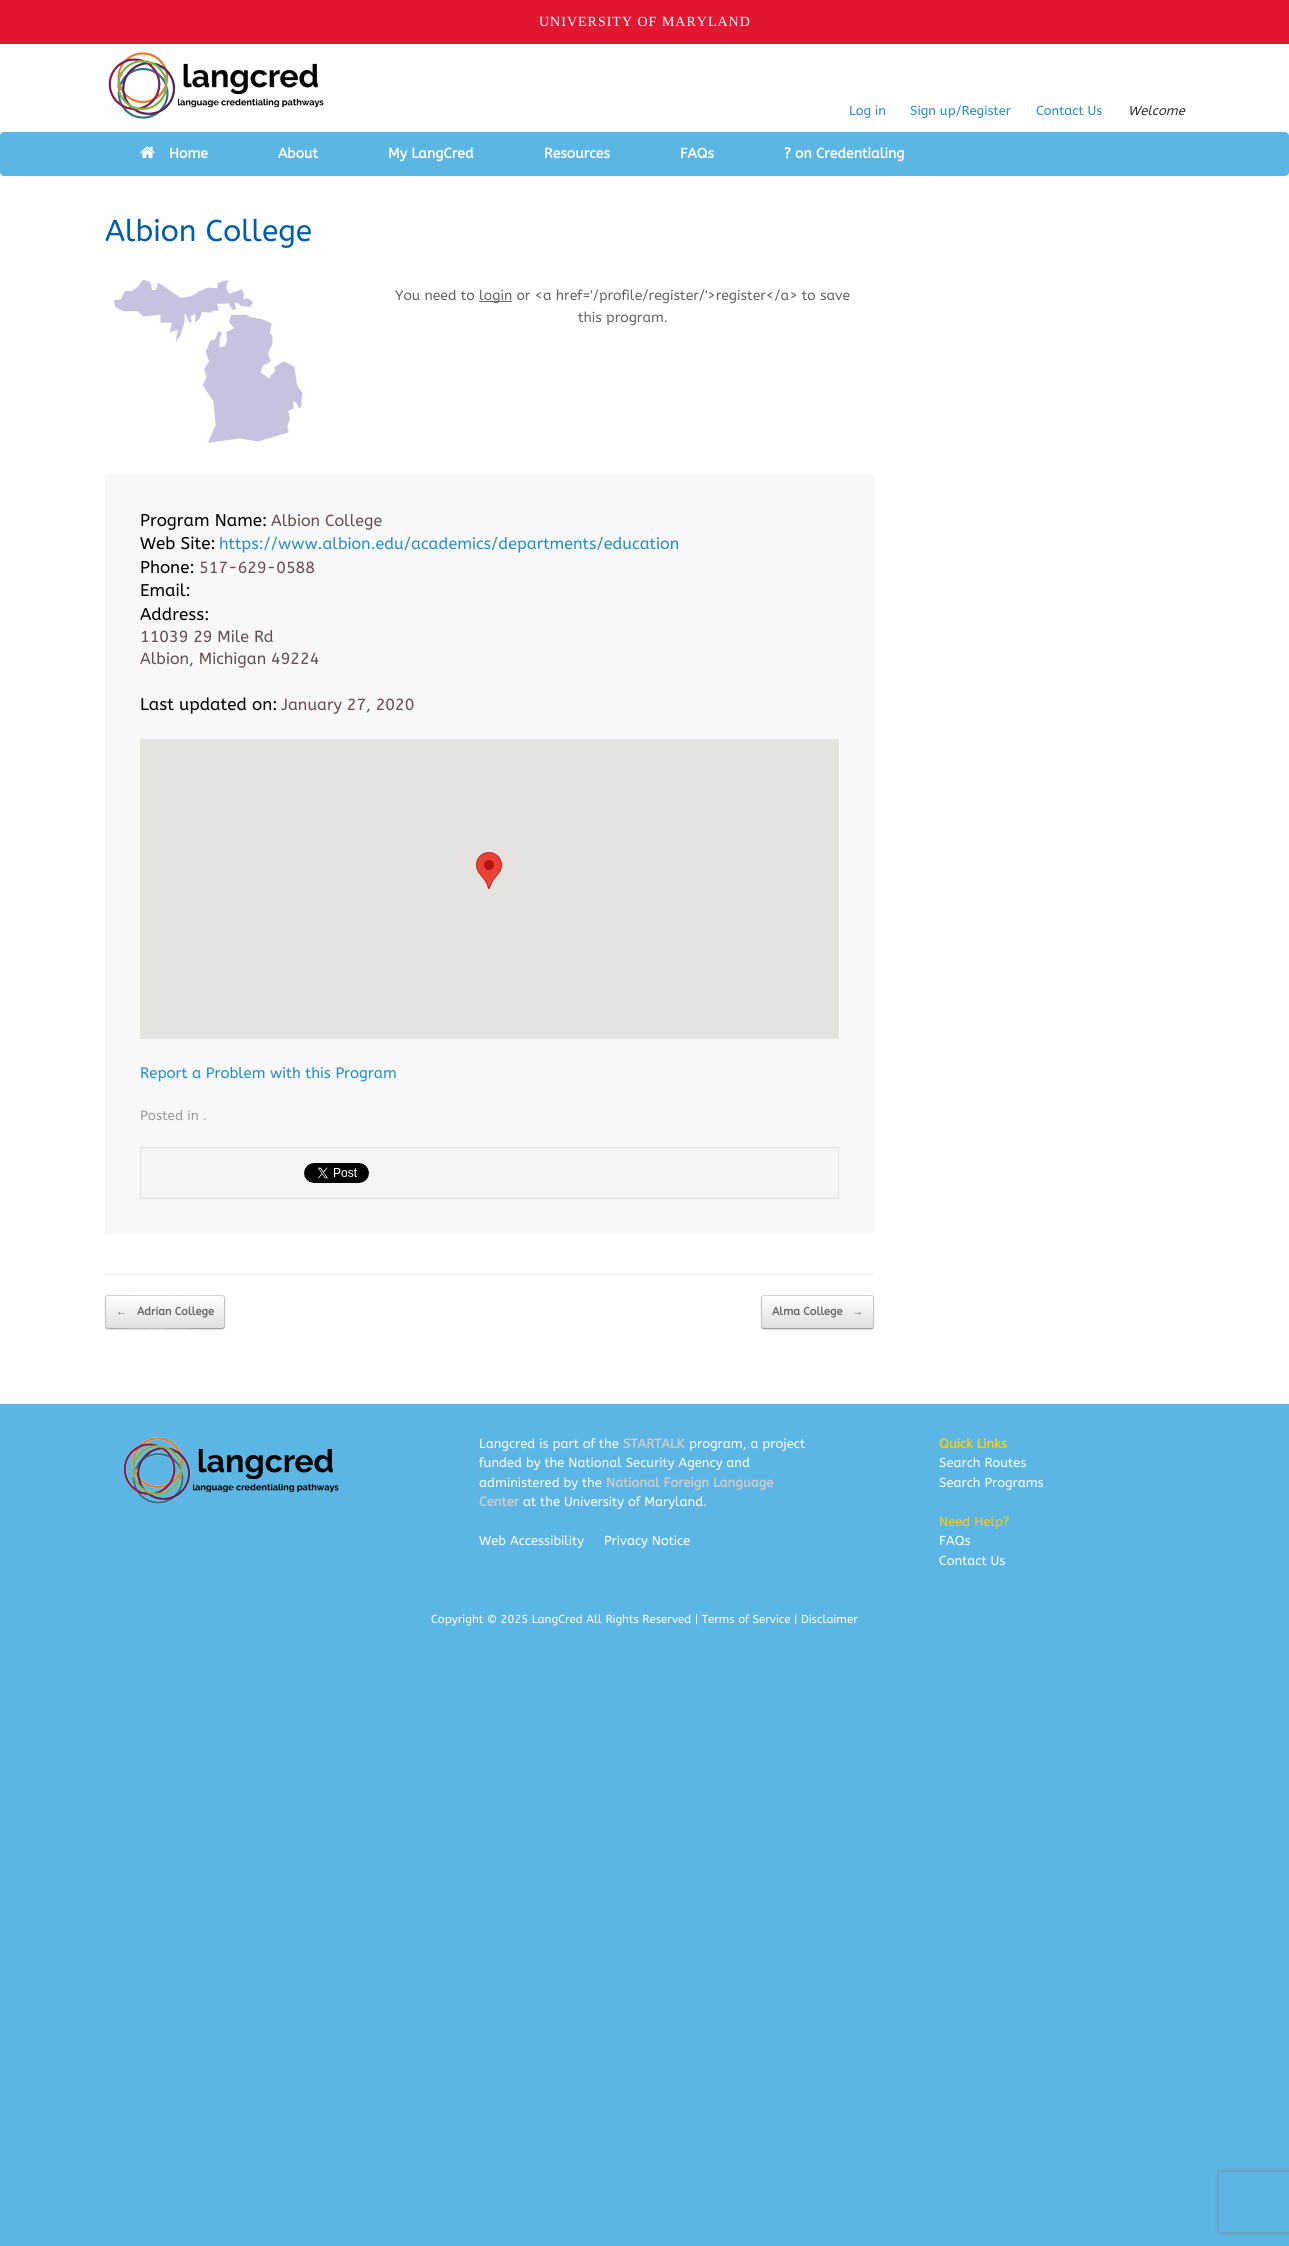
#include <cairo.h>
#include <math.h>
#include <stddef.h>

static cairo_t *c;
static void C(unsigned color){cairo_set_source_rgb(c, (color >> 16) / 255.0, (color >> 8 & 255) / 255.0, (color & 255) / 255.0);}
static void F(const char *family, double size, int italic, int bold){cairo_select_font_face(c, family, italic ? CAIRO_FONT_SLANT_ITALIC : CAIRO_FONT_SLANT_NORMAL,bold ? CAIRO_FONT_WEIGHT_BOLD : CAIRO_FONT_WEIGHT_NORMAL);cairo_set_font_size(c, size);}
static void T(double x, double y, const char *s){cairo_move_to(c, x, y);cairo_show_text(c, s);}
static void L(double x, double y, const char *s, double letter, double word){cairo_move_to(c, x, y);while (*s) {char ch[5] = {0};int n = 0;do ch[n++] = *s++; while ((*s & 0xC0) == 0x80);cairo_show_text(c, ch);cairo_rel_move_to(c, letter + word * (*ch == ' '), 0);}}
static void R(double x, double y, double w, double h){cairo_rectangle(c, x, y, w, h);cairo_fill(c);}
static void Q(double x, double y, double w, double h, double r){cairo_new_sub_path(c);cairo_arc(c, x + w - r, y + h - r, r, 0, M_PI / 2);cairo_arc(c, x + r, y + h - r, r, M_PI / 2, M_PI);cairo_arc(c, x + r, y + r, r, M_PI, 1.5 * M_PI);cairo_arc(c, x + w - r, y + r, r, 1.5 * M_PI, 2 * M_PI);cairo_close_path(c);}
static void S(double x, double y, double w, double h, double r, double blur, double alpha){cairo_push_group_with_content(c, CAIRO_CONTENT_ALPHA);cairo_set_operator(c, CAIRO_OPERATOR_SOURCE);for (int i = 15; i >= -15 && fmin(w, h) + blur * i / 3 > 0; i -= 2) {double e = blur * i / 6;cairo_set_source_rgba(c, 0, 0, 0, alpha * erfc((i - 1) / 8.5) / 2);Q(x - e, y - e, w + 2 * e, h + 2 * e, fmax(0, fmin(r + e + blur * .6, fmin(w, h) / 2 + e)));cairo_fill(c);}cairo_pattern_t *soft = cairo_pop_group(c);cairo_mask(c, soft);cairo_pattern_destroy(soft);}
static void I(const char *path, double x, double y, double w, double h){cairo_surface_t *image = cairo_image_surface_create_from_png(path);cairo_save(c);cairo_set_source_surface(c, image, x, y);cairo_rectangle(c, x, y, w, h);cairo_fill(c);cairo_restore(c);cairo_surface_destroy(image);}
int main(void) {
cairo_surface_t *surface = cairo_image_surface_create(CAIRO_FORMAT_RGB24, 1289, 2246);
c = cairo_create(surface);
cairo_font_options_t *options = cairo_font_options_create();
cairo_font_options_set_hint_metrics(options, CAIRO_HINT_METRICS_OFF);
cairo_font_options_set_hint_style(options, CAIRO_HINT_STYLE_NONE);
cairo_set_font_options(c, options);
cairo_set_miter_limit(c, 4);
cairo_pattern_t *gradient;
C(0x5cb6e5);
cairo_paint(c);
C(0xe21833);
R(0,0,1289,44);
F("Liberation Serif",14,0,0);
C(0xffffff);
L(539,26,"UNIVERSITY OF MARYLAND",1,0);
R(0,44,1289,1360);
I("1.png",108,52,216,67);
F("ABeeZee",13,0,0);
C(0x248cc8);
T(849,115,"Log in");
T(910,115,"Sign up/Register");
T(1036,115,"Contact Us");
F("ABeeZee",13,1,0);
C(0x333333);
T(1128,115,"Welcome");
C(0x5cb6e5);
Q(0,132,1289,44,4);
cairo_fill(c);
I("2.png",140,146,15,12);
F("ABeeZee",14,0,1);
C(0xffffff);
T(169,158,"Home");
T(278,158,"About");
T(388,158,"My LangCred");
T(544,158,"Resources");
T(680,158,"FAQs");
T(784,158,"? on Credentialing");
C(0xeeeeee);
R(105,1274,769,1);
F("ABeeZee",30,0,0);
C(0x005daa);
T(105,241,"Albion College");
I("3.png",114,279,189,164);
F("ABeeZee",14,0,0);
C(0x646464);
T(395,300,"You need to");
C(0x666666);
R(479,301,33,1);
C(0x646464);
T(479,300,"login or <a href='/profile/register/'>register</a> to save");
T(578,322,"this program.");
C(0xf8f8f8);
R(105,474,769,760);
F("ABeeZee",17,0,0);
C(0x000000);
T(140,526,"Program Name:");
F("ABeeZee",16.1,0,0);
C(0x664e4e);
T(271,526,"Albion College");
F("ABeeZee",17,0,0);
C(0x000000);
T(140,549,"Web Site:");
F("ABeeZee",16.1,0,0);
C(0x248cc8);
T(219,549,"https://www.albion.edu/academics/departments/education");
F("ABeeZee",17,0,0);
C(0x000000);
T(140,573,"Phone:");
F("ABeeZee",16.1,0,0);
C(0x664e4e);
T(199,573,"517-629-0588");
F("ABeeZee",17,0,0);
C(0x000000);
T(140,596,"Email:");
T(140,620,"Address:");
F("ABeeZee",16.1,0,0);
C(0x664e4e);
T(140,642,"11039 29 Mile Rd");
T(140,664,"Albion, Michigan 49224");
F("ABeeZee",17,0,0);
C(0x000000);
T(140,710,"Last updated on:");
F("ABeeZee",16.1,0,0);
C(0x664e4e);
T(281,710,"January 27, 2020");
C(0xe5e3df);
R(140,739,699,300);
I("4.png",476,852,26,37);
F("ABeeZee",15,0,0);
C(0x248cc8);
T(140,1078,"Report a Problem with this Program");
F("ABeeZee",13.5,0,0);
C(0x999999);
T(140,1120,"Posted in .");
C(0xf5f5f5);
cairo_rectangle(c,140.5,1147.5,698,51);
cairo_fill_preserve(c);
C(0xe0e0e0);
cairo_set_line_width(c,1);
cairo_stroke(c);
I("5.png",304,1163,65,20);
C(0x000000);
S(105,1296,120,34,3,.5,.12);
cairo_save(c);
Q(105,1295,120,34,3);
cairo_clip(c);
gradient = cairo_pattern_create_linear(106,1296,106,1264);
cairo_pattern_add_color_stop_rgba(gradient,0,0.875,0.875,0.875,1);
cairo_pattern_add_color_stop_rgba(gradient,1,1,1,1,1);
cairo_set_source(c,gradient);
cairo_pattern_destroy(gradient);
R(105,1295,120,1);
gradient = cairo_pattern_create_linear(106,1328,106,1296);
cairo_pattern_add_color_stop_rgba(gradient,0,0.875,0.875,0.875,1);
cairo_pattern_add_color_stop_rgba(gradient,1,1,1,1,1);
cairo_set_source(c,gradient);
cairo_pattern_destroy(gradient);
R(105,1296,120,32);
gradient = cairo_pattern_create_linear(106,1360,106,1328);
cairo_pattern_add_color_stop_rgba(gradient,0,0.875,0.875,0.875,1);
cairo_pattern_add_color_stop_rgba(gradient,1,1,1,1,1);
cairo_set_source(c,gradient);
cairo_pattern_destroy(gradient);
R(105,1328,120,1);
cairo_restore(c);
cairo_save(c);
cairo_rectangle(c,105,1295,769,34);
cairo_clip(c);
cairo_new_path(c);
cairo_move_to(c,106,1296);
cairo_line_to(c,108,1295.5);
cairo_line_to(c,127,1295.5);
cairo_curve_to(c,136.5,1295.5,221.5,1294.5,223.5,1296);
cairo_line_to(c,224,1296);
C(0xd2d2d2);
cairo_stroke(c);
cairo_restore(c);
cairo_new_path(c);
cairo_move_to(c,224,1296);
cairo_curve_to(c,224,1296.5,224.5,1297.5,224.5,1298);
cairo_line_to(c,224.5,1326);
cairo_curve_to(c,224.5,1326.5,224,1327.5,224,1328);
C(0xc3c3c3);
cairo_stroke(c);
cairo_save(c);
cairo_rectangle(c,105,1295,769,34);
cairo_clip(c);
cairo_new_path(c);
cairo_move_to(c,224,1328);
cairo_line_to(c,222,1328.5);
cairo_line_to(c,203,1328.5);
cairo_curve_to(c,193.5,1328.5,108.5,1329.5,106.5,1328);
cairo_line_to(c,106,1328);
C(0x9f9f9f);
cairo_stroke(c);
cairo_restore(c);
cairo_new_path(c);
cairo_move_to(c,106,1328);
cairo_curve_to(c,106,1327.5,105.5,1326.5,105.5,1326);
cairo_line_to(c,105.5,1298);
cairo_curve_to(c,105.5,1297.5,106,1296.5,106,1296);
cairo_stroke(c);
F("Liberation Serif",11,0,1);
C(0x646464);
T(116,1315,"←");
F("ABeeZee",11,0,1);
T(137,1315,"Adrian College");
C(0x000000);
S(761,1296,113,34,3,.5,.12);
cairo_save(c);
Q(761,1295,113,34,3);
cairo_clip(c);
gradient = cairo_pattern_create_linear(762,1328,762,1296);
cairo_pattern_add_color_stop_rgba(gradient,0,0.875,0.875,0.875,1);
cairo_pattern_add_color_stop_rgba(gradient,1,1,1,1,1);
cairo_set_source(c,gradient);
cairo_pattern_destroy(gradient);
R(761,1296,113,32);
cairo_restore(c);
cairo_new_path(c);
cairo_move_to(c,762,1296);
cairo_line_to(c,764,1295.5);
cairo_line_to(c,871,1295.5);
cairo_line_to(c,873,1296);
C(0xd2d2d2);
cairo_stroke(c);
cairo_new_path(c);
cairo_move_to(c,873,1296);
cairo_curve_to(c,873,1296.5,873.5,1297.5,873.5,1298);
cairo_line_to(c,873.5,1326);
cairo_curve_to(c,873.5,1326.5,873,1327.5,873,1328);
C(0xc3c3c3);
cairo_stroke(c);
cairo_new_path(c);
cairo_move_to(c,873,1328);
cairo_line_to(c,871,1328.5);
cairo_line_to(c,764,1328.5);
cairo_line_to(c,762,1328);
C(0x9f9f9f);
cairo_stroke(c);
cairo_new_path(c);
cairo_move_to(c,762,1328);
cairo_curve_to(c,762,1327.5,761.5,1326.5,761.5,1326);
cairo_line_to(c,761.5,1298);
cairo_curve_to(c,761.5,1297.5,762,1296.5,762,1296);
C(0xc3c3c3);
cairo_stroke(c);
C(0x646464);
T(772,1315,"Alma College");
F("Liberation Serif",11,0,1);
T(852,1315,"→");
I("6.png",123,1437,216,67);
F("ABeeZee",13,0,0);
C(0xffffff);
T(479,1448,"Langcred is part of the");
F("ABeeZee",13,0,1);
C(0xcccccc);
T(623,1448,"STARTALK");
F("ABeeZee",13,0,0);
C(0xffffff);
T(689,1448,"program, a project");
T(479,1467,"funded by the National Security Agency and");
T(479,1487,"administered by the");
F("ABeeZee",13,0,1);
C(0xcccccc);
T(606,1487,"National Foreign Language");
T(479,1506,"Center");
F("ABeeZee",13,0,0);
C(0xffffff);
T(523,1506,"at the University of Maryland.");
T(479,1545,"Web Accessibility");
T(604,1545,"Privacy Notice");
F("ABeeZee",13,0,1);
C(0xfdcd07);
T(939,1448,"Quick Links");
F("ABeeZee",13,0,0);
C(0xffffff);
T(939,1467,"Search Routes");
T(939,1487,"Search Programs");
C(0xfdcd07);
T(939,1526,"Need Help?");
C(0xffffff);
T(939,1545,"FAQs");
T(939,1565,"Contact Us");
F("ABeeZee",11.5,0,0);
T(431,1623,"Copyright © 2025 LangCred All Rights Reserved | Terms of Service | Disclaimer");
cairo_save(c);
cairo_set_fill_rule(c,CAIRO_FILL_RULE_EVEN_ODD);
cairo_new_path(c);
cairo_move_to(c,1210,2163);
cairo_line_to(c,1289,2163);
cairo_line_to(c,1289,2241);
cairo_line_to(c,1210,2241);
cairo_close_path(c);
cairo_move_to(c,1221,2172);
cairo_line_to(c,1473,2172);
cairo_curve_to(c,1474,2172,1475,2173,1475,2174);
cairo_line_to(c,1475,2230);
cairo_curve_to(c,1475,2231,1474,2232,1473,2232);
cairo_line_to(c,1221,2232);
cairo_curve_to(c,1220,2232,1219,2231,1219,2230);
cairo_line_to(c,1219,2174);
cairo_curve_to(c,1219,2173,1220,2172,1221,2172);
cairo_close_path(c);
cairo_clip(c);
C(0x808080);
S(1219,2172,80,60,2,2.5,1);
cairo_restore(c);
cairo_surface_write_to_png(surface, "o.png");
cairo_font_options_destroy(options);
cairo_destroy(c);
cairo_surface_destroy(surface);
return 0;
}
